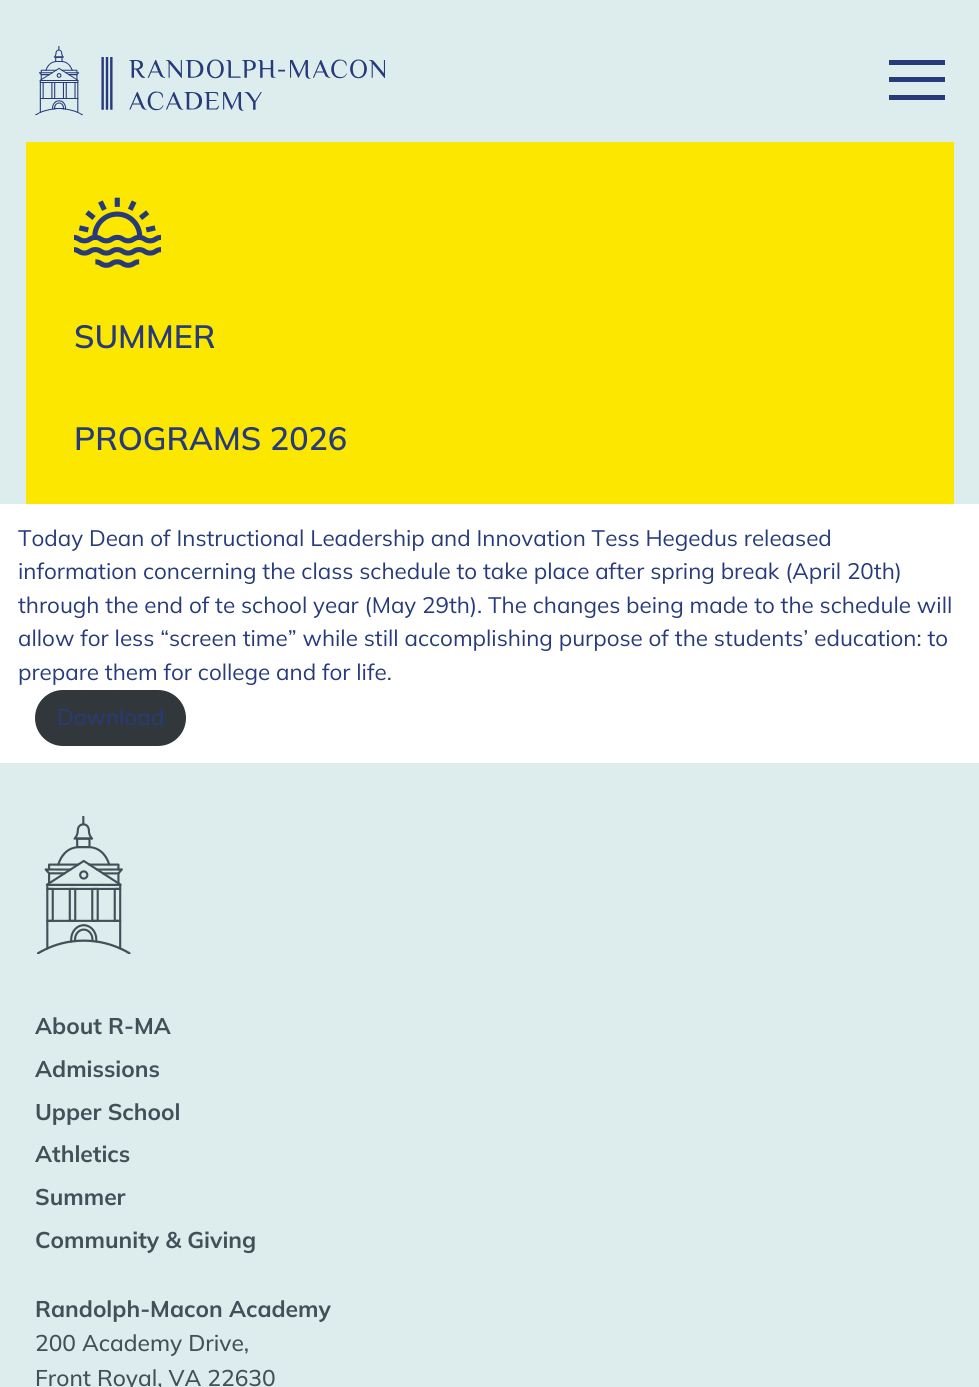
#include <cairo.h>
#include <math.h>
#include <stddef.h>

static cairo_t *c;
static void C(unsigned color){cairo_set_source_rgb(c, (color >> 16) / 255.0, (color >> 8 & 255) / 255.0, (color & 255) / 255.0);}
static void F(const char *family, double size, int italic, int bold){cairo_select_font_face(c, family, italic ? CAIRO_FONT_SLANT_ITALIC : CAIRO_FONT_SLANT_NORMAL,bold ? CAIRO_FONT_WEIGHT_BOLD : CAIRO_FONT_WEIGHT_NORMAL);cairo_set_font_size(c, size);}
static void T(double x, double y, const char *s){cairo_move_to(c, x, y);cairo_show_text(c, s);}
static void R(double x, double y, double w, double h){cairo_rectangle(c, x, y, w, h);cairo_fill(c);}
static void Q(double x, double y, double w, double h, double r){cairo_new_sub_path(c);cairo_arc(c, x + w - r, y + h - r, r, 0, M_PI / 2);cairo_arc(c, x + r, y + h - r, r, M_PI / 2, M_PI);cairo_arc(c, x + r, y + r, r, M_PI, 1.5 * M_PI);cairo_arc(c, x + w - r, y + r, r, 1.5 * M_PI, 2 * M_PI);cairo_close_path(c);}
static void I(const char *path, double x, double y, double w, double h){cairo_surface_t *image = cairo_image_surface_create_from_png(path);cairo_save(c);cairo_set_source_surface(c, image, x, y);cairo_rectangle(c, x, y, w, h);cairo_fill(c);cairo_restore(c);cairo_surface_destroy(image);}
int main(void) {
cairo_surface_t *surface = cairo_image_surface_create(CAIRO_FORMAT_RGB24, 979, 1387);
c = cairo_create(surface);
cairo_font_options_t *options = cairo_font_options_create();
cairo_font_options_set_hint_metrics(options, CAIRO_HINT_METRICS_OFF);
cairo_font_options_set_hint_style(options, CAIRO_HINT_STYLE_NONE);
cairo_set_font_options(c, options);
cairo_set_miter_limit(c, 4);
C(0xffffff);
cairo_paint(c);
C(0xddeded);
R(0,0,979,504);
I("1.png",35,46,350,70);
C(0x273b7a);
R(889,60,56,5);
R(889,77,56,5);
R(889,95,56,5);
C(0xfce700);
R(26,142,928,362);
I("2.png",74,197,87,71);
F("Mulish SemiBold",32.25,0,0);
C(0x273b7a);
T(74,348,"SUMMER");
T(74,450,"PROGRAMS 2026");
F("Mulish",22.4,0,0);
T(18,546,"Today Dean of Instructional Leadership and Innovation Tess Hegedus released");
T(18,579,"information concerning the class schedule to take place after spring break (April 20th)");
T(18,613,"through the end of te school year (May 29th). The changes being made to the schedule will");
T(18,646,"allow for less “screen time” while still accomplishing purpose of the students’ education: to");
T(18,680,"prepare them for college and for life.");
C(0x32373c);
Q(35,690,151,56,28);
cairo_fill(c);
C(0x273b7a);
T(57,725,"Download");
C(0xddeded);
R(0,763,979,624);
I("3.png",37,816,94,138);
F("Mulish",22.75,0,1);
C(0x425057);
T(35,1034,"About R-MA");
T(35,1077,"Admissions");
T(35,1120,"Upper School");
T(35,1162,"Athletics");
T(35,1205,"Summer");
T(35,1248,"Community & Giving");
T(35,1317,"Randolph-Macon Academy");
F("Mulish Medium",22.75,0,0);
T(35,1351,"200 Academy Drive,");
T(35,1386,"Front Royal, VA 22630");
cairo_surface_write_to_png(surface, "o.png");
cairo_font_options_destroy(options);
cairo_destroy(c);
cairo_surface_destroy(surface);
return 0;
}
